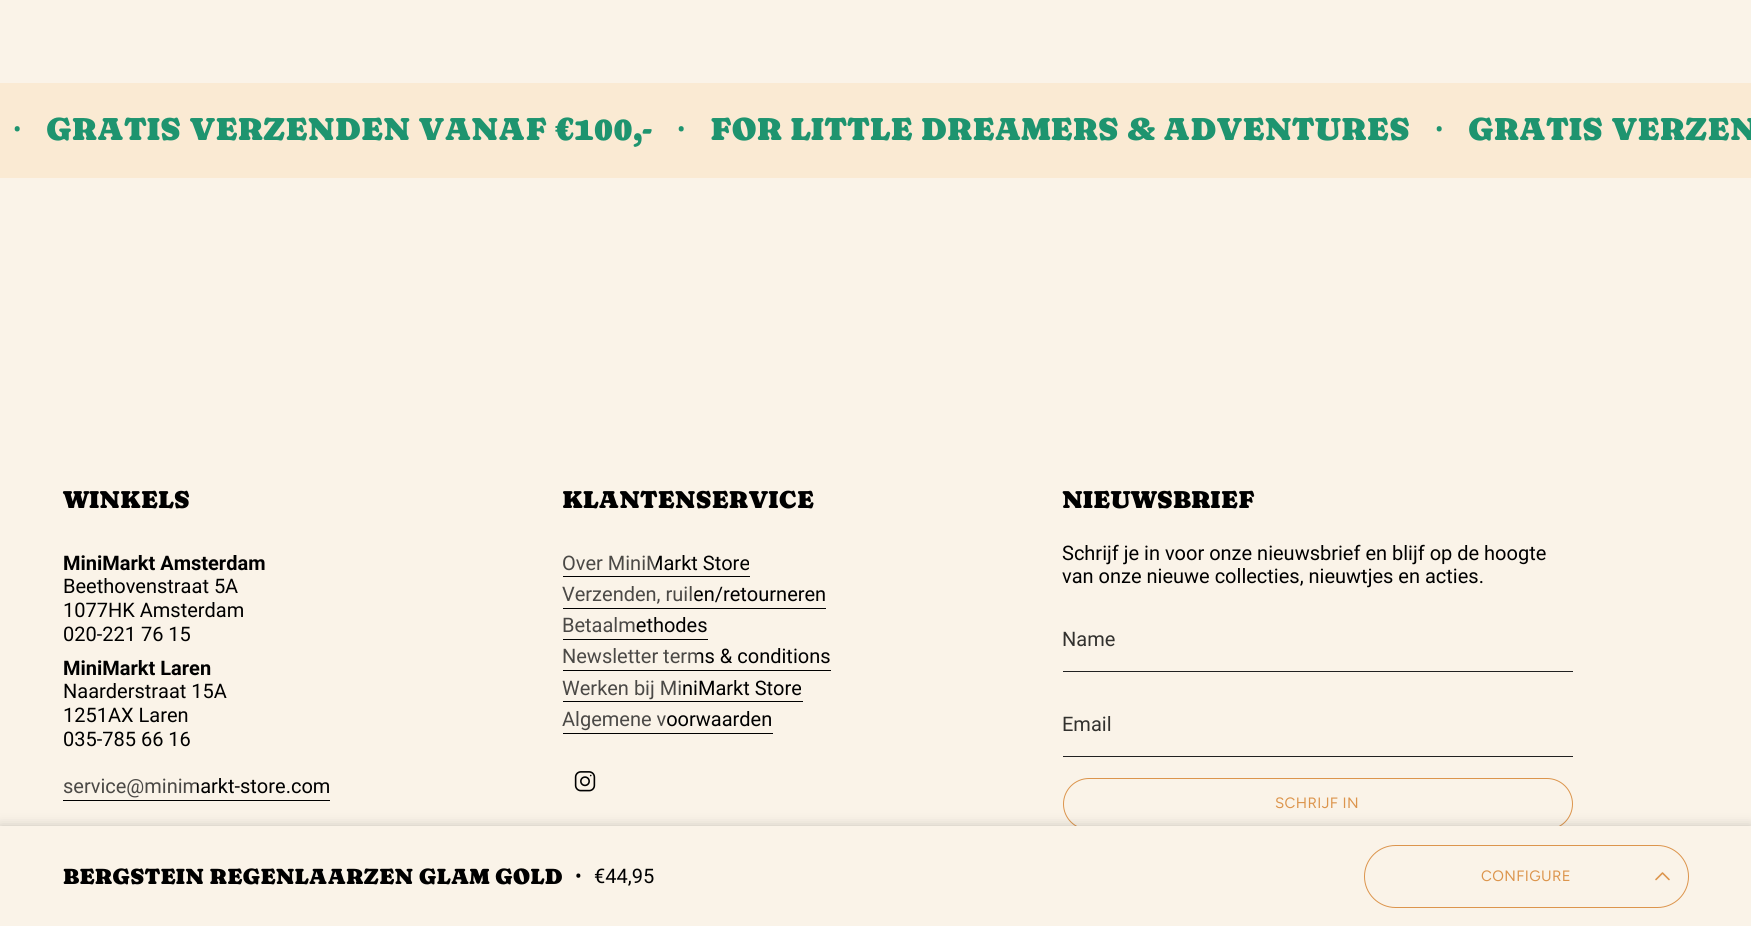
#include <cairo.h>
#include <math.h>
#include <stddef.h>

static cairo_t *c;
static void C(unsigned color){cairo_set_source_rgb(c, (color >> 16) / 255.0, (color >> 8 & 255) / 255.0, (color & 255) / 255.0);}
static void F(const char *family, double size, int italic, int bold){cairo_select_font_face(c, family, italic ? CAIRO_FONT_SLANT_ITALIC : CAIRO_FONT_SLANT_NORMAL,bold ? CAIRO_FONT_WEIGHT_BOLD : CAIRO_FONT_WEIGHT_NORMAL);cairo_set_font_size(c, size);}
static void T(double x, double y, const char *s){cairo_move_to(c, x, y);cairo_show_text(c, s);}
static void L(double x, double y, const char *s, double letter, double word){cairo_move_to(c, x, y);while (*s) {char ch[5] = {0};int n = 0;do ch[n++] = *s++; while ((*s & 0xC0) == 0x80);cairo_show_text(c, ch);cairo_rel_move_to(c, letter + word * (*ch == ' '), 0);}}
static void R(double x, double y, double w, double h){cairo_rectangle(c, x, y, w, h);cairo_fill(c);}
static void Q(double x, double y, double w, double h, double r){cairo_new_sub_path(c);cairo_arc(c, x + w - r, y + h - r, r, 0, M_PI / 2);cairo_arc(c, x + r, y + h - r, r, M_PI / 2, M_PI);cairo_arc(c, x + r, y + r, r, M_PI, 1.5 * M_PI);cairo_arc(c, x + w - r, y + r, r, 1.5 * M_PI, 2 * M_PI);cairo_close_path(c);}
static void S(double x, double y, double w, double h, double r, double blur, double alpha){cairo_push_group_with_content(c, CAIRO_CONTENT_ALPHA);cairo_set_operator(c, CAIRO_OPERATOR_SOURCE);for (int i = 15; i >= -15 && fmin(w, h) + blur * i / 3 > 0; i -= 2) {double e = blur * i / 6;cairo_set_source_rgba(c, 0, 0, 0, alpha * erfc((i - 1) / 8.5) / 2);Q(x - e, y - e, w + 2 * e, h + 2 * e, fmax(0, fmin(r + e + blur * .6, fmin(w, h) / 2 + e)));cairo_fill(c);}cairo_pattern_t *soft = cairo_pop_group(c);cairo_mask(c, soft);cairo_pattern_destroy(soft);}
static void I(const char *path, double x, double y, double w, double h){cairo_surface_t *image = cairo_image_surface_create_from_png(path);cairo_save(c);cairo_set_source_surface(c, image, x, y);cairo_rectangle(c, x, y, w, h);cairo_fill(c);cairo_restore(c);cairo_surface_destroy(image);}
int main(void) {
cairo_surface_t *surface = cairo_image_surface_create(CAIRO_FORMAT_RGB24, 1751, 926);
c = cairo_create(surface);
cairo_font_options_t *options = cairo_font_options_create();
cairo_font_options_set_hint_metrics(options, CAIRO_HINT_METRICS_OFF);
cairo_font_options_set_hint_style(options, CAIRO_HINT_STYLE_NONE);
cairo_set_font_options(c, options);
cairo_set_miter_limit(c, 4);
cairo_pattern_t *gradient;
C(0xfaf3e8);
cairo_paint(c);
C(0xfaead3);
R(0,83,1751,95);
F("Roboto",25,0,0);
C(0x1e946f);
T(13,138,"•");
F("Caprasimo",32.5,0,0);
T(46,140,"GRATIS VERZENDEN VANAF €100,-");
F("Roboto",25,0,0);
T(677,138,"•");
F("Caprasimo",32.5,0,0);
T(710,140,"FOR LITTLE DREAMERS & ADVENTURES");
F("Roboto",25,0,0);
T(1435,138,"•");
F("Caprasimo",32.5,0,0);
T(1468,140,"GRATIS VERZEN");
Q(1063.5,778.5,509,51,25.5);
C(0xdc954d);
cairo_set_line_width(c,1);
cairo_stroke(c);
C(0x000000);
S(0,826,1751,100,0,6,.2);
C(0xfaf3e8);
R(0,826,1751,100);
F("Caprasimo",22.5,0,0);
C(0x000000);
T(63,884,"BERGSTEIN REGENLAARZEN GLAM GOLD");
F("Roboto",20,0,0);
T(575,883,"•");
T(594,883,"€44,95");
Q(1364.5,845.5,324,62,31);
C(0xdc954d);
cairo_stroke(c);
F("Figtree",15,0,0);
L(1481,881,"CONFIGURE",.4,0);
cairo_new_path(c);
cairo_move_to(c,1656,879.5);
cairo_line_to(c,1662.5,873);
cairo_line_to(c,1669,879.5);
cairo_set_line_width(c,1.6);
cairo_set_line_cap(c,CAIRO_LINE_CAP_ROUND);
cairo_set_line_join(c,CAIRO_LINE_JOIN_ROUND);
cairo_stroke(c);
F("Caprasimo",25,0,0);
C(0x000000);
T(63,508,"WINKELS");
F("Roboto",20,0,1);
T(63,570,"MiniMarkt Amsterdam");
F("Roboto",20,0,0);
T(63,593,"Beethovenstraat 5A");
T(63,617,"1077HK Amsterdam");
T(63,641,"020-221 76 15");
F("Roboto",20,0,1);
T(63,675,"MiniMarkt Laren");
F("Roboto",20,0,0);
T(63,698,"Naarderstraat 15A");
T(63,722,"1251AX Laren");
T(63,746,"035-785 66 16");
gradient = cairo_pattern_create_linear(63,788,330,788);
cairo_pattern_add_color_stop_rgba(gradient,0,0.294,0.286,0.275,1);
cairo_pattern_add_color_stop_rgba(gradient,.5,0.294,0.286,0.275,1);
cairo_pattern_add_color_stop_rgba(gradient,.5,0,0,0,1);
cairo_pattern_add_color_stop_rgba(gradient,1,0,0,0,1);
cairo_set_source(c,gradient);
cairo_pattern_destroy(gradient);
T(63,793,"service@minimarkt-store.com");
C(0x000000);
R(63,800,267,1);
F("Caprasimo",25,0,0);
T(562,508,"KLANTENSERVICE");
F("Roboto",20,0,0);
gradient = cairo_pattern_create_linear(562,564,750,564);
cairo_pattern_add_color_stop_rgba(gradient,0,0.294,0.286,0.275,1);
cairo_pattern_add_color_stop_rgba(gradient,.5,0.294,0.286,0.275,1);
cairo_pattern_add_color_stop_rgba(gradient,.5,0,0,0,1);
cairo_pattern_add_color_stop_rgba(gradient,1,0,0,0,1);
cairo_set_source(c,gradient);
cairo_pattern_destroy(gradient);
T(562,570,"Over MiniMarkt Store");
C(0x000000);
R(563,576,187,1);
gradient = cairo_pattern_create_linear(562,595,827,595);
cairo_pattern_add_color_stop_rgba(gradient,0,0.294,0.286,0.275,1);
cairo_pattern_add_color_stop_rgba(gradient,.5,0.294,0.286,0.275,1);
cairo_pattern_add_color_stop_rgba(gradient,.5,0,0,0,1);
cairo_pattern_add_color_stop_rgba(gradient,1,0,0,0,1);
cairo_set_source(c,gradient);
cairo_pattern_destroy(gradient);
T(562,601,"Verzenden, ruilen/retourneren");
C(0x000000);
R(563,608,263,1);
gradient = cairo_pattern_create_linear(562,627,708,627);
cairo_pattern_add_color_stop_rgba(gradient,0,0.294,0.286,0.275,1);
cairo_pattern_add_color_stop_rgba(gradient,.5,0.294,0.286,0.275,1);
cairo_pattern_add_color_stop_rgba(gradient,.5,0,0,0,1);
cairo_pattern_add_color_stop_rgba(gradient,1,0,0,0,1);
cairo_set_source(c,gradient);
cairo_pattern_destroy(gradient);
T(562,632,"Betaalmethodes");
C(0x000000);
R(563,639,145,1);
gradient = cairo_pattern_create_linear(562,658,831,658);
cairo_pattern_add_color_stop_rgba(gradient,0,0.294,0.286,0.275,1);
cairo_pattern_add_color_stop_rgba(gradient,.5,0.294,0.286,0.275,1);
cairo_pattern_add_color_stop_rgba(gradient,.5,0,0,0,1);
cairo_pattern_add_color_stop_rgba(gradient,1,0,0,0,1);
cairo_set_source(c,gradient);
cairo_pattern_destroy(gradient);
T(562,663,"Newsletter terms & conditions");
C(0x000000);
R(563,670,268,1);
gradient = cairo_pattern_create_linear(562,689,802,689);
cairo_pattern_add_color_stop_rgba(gradient,0,0.294,0.286,0.275,1);
cairo_pattern_add_color_stop_rgba(gradient,.5,0.294,0.286,0.275,1);
cairo_pattern_add_color_stop_rgba(gradient,.5,0,0,0,1);
cairo_pattern_add_color_stop_rgba(gradient,1,0,0,0,1);
cairo_set_source(c,gradient);
cairo_pattern_destroy(gradient);
T(562,695,"Werken bij MiniMarkt Store");
C(0x000000);
R(563,701,240,1);
gradient = cairo_pattern_create_linear(562,720,773,720);
cairo_pattern_add_color_stop_rgba(gradient,0,0.294,0.286,0.275,1);
cairo_pattern_add_color_stop_rgba(gradient,.5,0.294,0.286,0.275,1);
cairo_pattern_add_color_stop_rgba(gradient,.5,0,0,0,1);
cairo_pattern_add_color_stop_rgba(gradient,1,0,0,0,1);
cairo_set_source(c,gradient);
cairo_pattern_destroy(gradient);
T(562,726,"Algemene voorwaarden");
C(0x000000);
R(563,733,210,1);
I("1.png",574,771,22,21);
F("Caprasimo",25,0,0);
T(1062,508,"NIEUWSBRIEF");
F("Roboto",20,0,0);
T(1062,560,"Schrijf je in voor onze nieuwsbrief en blijf op de hoogte");
T(1062,583,"van onze nieuwe collecties, nieuwtjes en acties.");
C(0x212121);
R(1063,671,510,1);
C(0x32312e);
T(1062,646,"Name");
C(0x212121);
R(1063,756,510,1);
C(0x32312e);
T(1062,731,"Email");
F("Figtree",15,0,0);
C(0xdc954d);
L(1275,808,"SCHRIJF IN",.4,0);
cairo_surface_write_to_png(surface, "o.png");
cairo_font_options_destroy(options);
cairo_destroy(c);
cairo_surface_destroy(surface);
return 0;
}
